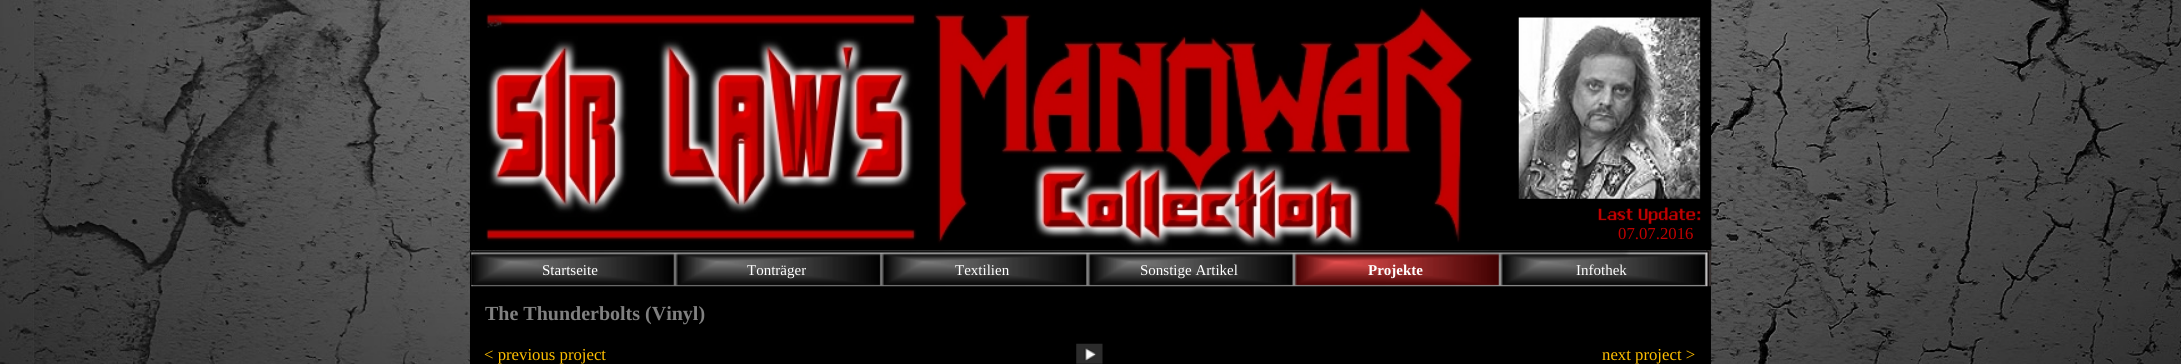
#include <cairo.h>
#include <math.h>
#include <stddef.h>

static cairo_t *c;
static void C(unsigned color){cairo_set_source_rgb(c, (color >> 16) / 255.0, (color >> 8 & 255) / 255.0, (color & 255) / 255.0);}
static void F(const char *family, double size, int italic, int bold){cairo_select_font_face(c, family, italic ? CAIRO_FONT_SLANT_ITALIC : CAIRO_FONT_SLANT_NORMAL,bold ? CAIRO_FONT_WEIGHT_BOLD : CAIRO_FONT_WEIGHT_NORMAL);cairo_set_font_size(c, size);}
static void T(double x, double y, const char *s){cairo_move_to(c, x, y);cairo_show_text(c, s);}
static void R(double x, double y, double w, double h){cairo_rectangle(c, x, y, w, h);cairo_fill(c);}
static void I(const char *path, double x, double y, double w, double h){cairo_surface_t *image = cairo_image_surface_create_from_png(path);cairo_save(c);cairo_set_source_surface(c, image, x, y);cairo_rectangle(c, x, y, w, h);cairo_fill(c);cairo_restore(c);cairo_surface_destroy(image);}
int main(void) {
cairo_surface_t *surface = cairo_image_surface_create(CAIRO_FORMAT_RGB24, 2181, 364);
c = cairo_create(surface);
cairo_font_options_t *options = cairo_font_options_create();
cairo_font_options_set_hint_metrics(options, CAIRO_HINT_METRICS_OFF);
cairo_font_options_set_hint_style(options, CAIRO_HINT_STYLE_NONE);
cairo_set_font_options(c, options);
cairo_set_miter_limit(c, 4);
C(0xffffff);
cairo_paint(c);
I("1.png",0,0,2181,364);
I("2.png",470,0,1242,250);
F("Liberation Serif",16.75,0,0);
C(0xc00000);
T(1618,239,"07.07.2016");
C(0x000000);
R(470,286,1241,78);
I("3.png",470,250,1242,37);
I("4.png",471,253,203,33);
F("Liberation Serif",15,0,0);
C(0xffffff);
T(542,275,"Startseite");
I("5.png",676,253,205,33);
T(747,275,"Tonträger");
I("6.png",882,253,205,33);
T(955,275,"Textilien");
I("7.png",1088,253,205,33);
T(1140,275,"Sonstige Artikel");
I("8.png",1295,253,204,33);
F("Liberation Serif",15,0,1);
T(1368,275,"Projekte");
I("9.png",1501,253,205,33);
F("Liberation Serif",15,0,0);
T(1576,275,"Infothek");
F("Liberation Serif",20,0,1);
C(0x808080);
T(485,320,"The Thunderbolts (Vinyl)");
F("Liberation Serif",16.75,0,0);
C(0xffbf00);
T(484,360,"< previous project");
I("10.png",1076,343,27,21);
T(1602,360,"next project >");
cairo_surface_write_to_png(surface, "o.png");
cairo_font_options_destroy(options);
cairo_destroy(c);
cairo_surface_destroy(surface);
return 0;
}
